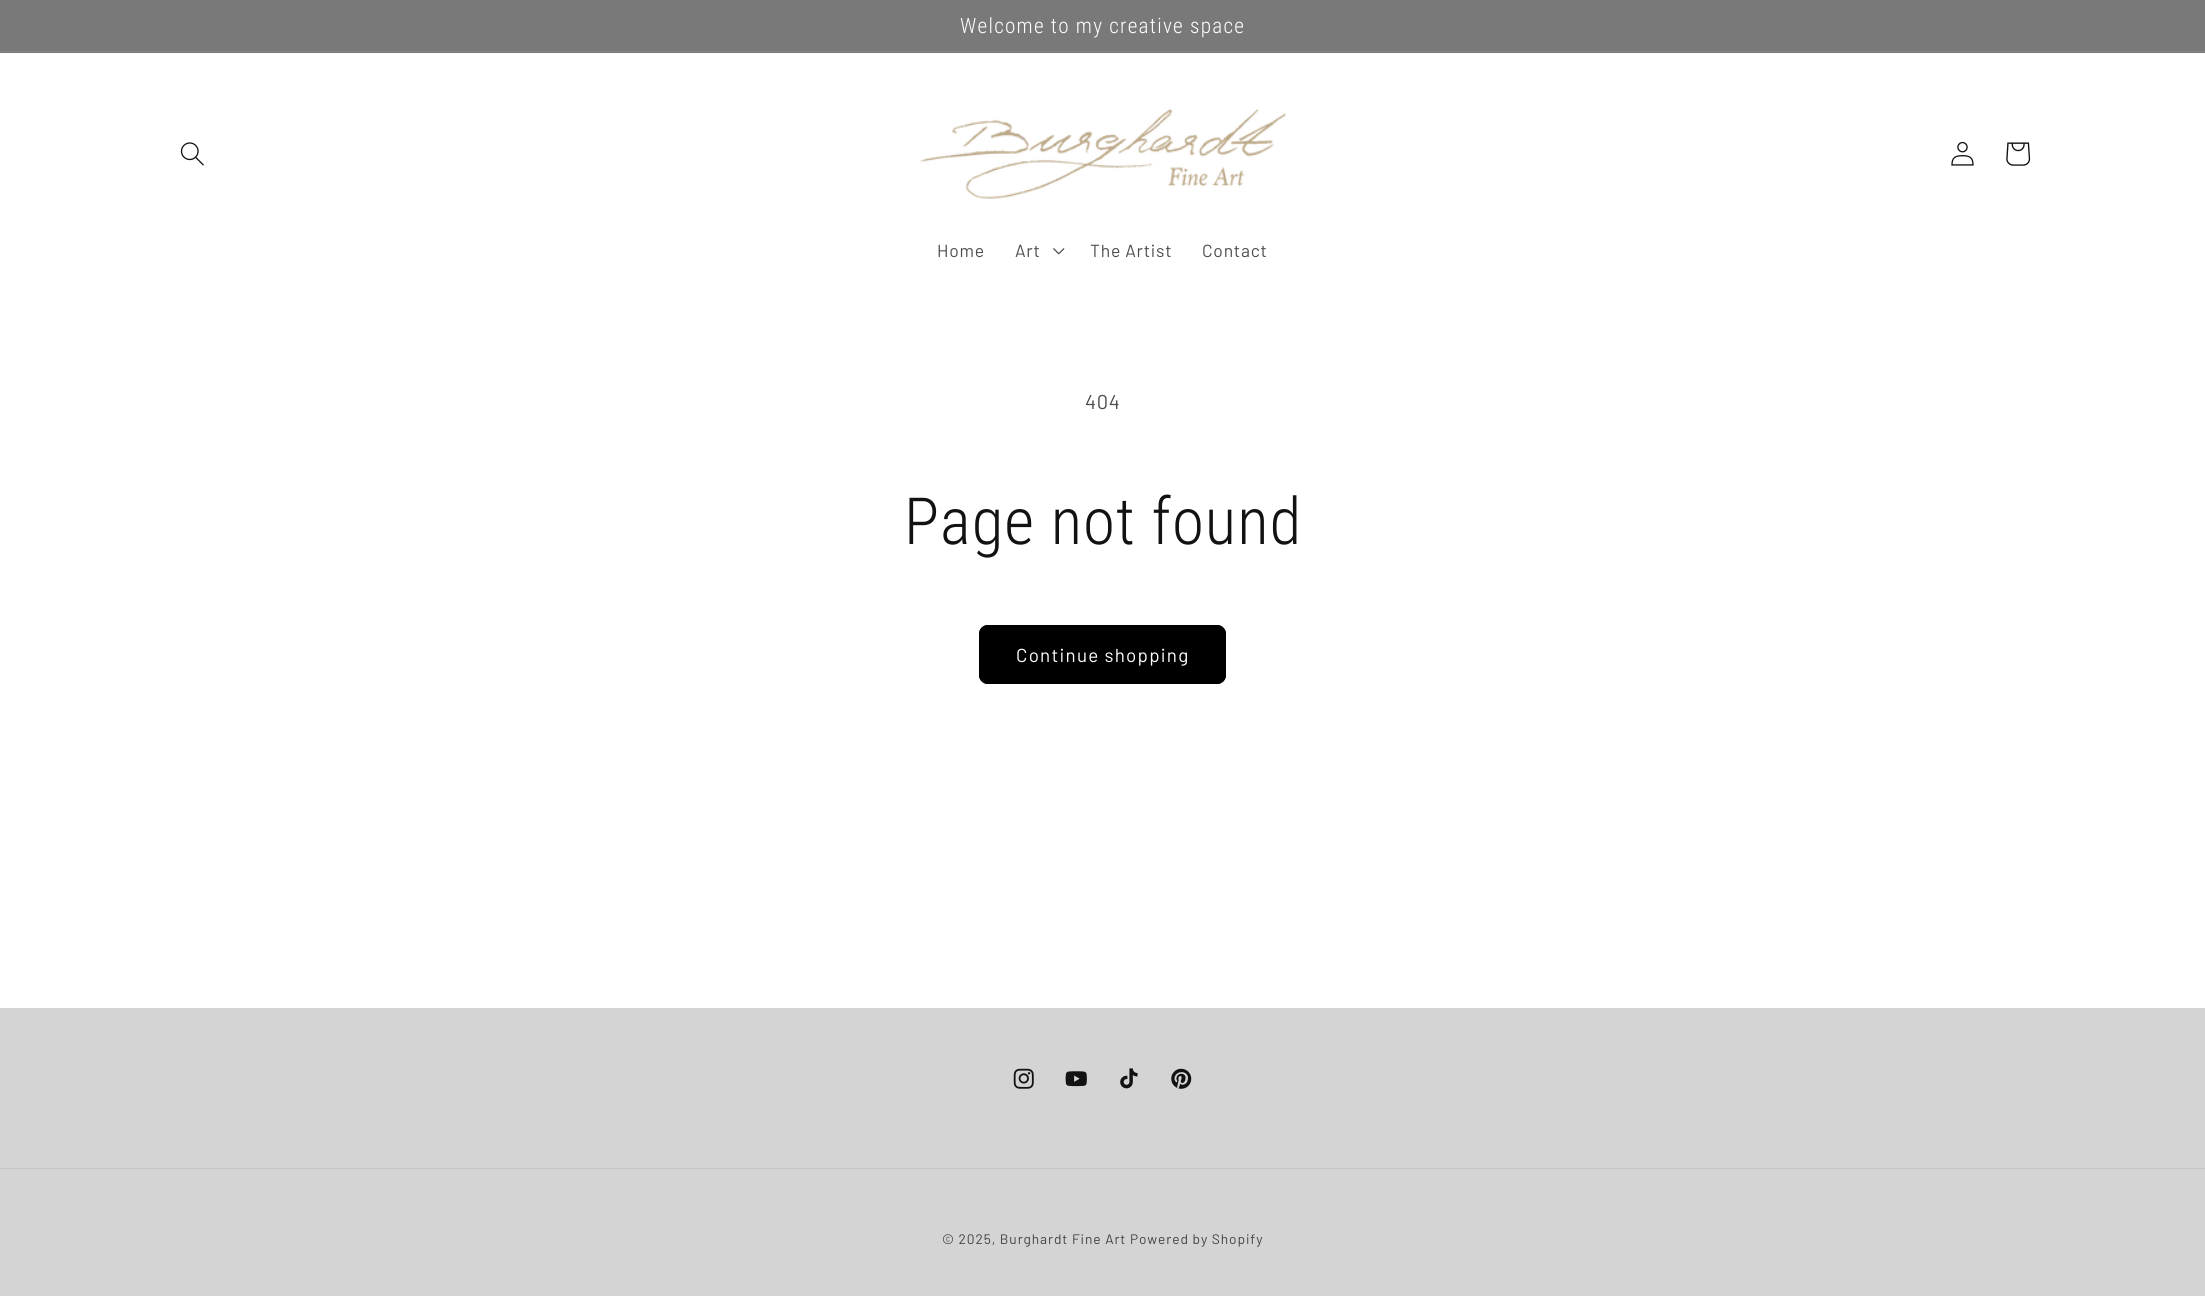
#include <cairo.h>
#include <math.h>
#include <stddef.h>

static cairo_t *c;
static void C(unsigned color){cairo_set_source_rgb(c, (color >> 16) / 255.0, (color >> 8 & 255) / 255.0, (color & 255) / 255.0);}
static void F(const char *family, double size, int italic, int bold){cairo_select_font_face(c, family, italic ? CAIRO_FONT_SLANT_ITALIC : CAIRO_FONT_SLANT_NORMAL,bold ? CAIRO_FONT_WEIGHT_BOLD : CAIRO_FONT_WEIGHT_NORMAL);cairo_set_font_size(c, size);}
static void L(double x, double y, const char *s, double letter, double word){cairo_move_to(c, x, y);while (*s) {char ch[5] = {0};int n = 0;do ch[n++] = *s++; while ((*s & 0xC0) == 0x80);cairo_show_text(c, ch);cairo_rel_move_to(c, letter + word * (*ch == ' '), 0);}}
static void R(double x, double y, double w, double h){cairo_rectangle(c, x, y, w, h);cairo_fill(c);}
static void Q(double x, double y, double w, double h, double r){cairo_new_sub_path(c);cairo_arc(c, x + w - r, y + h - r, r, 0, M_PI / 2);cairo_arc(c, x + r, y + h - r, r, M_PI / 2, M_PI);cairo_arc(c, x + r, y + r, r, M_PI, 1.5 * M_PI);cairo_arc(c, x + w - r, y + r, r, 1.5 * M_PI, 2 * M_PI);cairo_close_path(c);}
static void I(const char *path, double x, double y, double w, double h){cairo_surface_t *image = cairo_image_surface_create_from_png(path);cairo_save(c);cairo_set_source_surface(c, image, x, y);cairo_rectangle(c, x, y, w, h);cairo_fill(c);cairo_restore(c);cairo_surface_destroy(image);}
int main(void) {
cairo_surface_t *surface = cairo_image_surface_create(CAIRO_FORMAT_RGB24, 2205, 1296);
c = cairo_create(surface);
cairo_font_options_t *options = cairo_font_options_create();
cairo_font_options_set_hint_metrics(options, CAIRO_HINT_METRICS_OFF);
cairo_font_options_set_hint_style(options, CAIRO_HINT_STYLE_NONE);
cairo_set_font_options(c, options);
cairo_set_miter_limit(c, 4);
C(0xffffff);
cairo_paint(c);
C(0x797979);
R(0,0,2205,53);
C(0x848484);
R(0,51,2205,1);
F("Roboto Condensed Light",21.1,0,0);
C(0xffffff);
L(960,33,"Welcome to my creative space",1.25,0);
I("1.png",180,142,24,24);
I("2.png",919,108,368,91);
I("3.png",1951,141,23,25);
I("4.png",2006,142,25,24);
F("Barlow",17.5,0,0);
C(0x4d4d4d);
L(937,257,"Home",.75,0);
L(1015,257,"Art",.75,0);
I("5.png",1053,248,12,7);
L(1090,257,"The Artist",.75,0);
L(1202,257,"Contact",.75,0);
F("Barlow",20,0,0);
L(1085,409,"404",.75,0);
F("Roboto Condensed Light",65,0,0);
C(0x121212);
L(904,544,"Page not found",1,0);
C(0x000000);
Q(979,625,247,59,9);
cairo_fill(c);
Q(979.5,625.5,246,58,8.5);
cairo_set_line_width(c,1);
cairo_stroke(c);
F("Barlow",18.75,0,0);
C(0xffffff);
L(1016,662,"Continue shopping",1.25,0);
C(0xd4d4d4);
R(0,1008,2205,288);
I("6.png",1013,1068,21,21);
I("7.png",1065,1071,22,16);
I("8.png",1120,1068,18,21);
I("9.png",1171,1068,21,21);
C(0xc4c4c4);
R(0,1168,2205,1);
F("Barlow",13.75,0,0);
C(0x434343);
L(942,1244,"© 2025, Burghardt Fine Art Powered by Shopify",.9,0);
cairo_surface_write_to_png(surface, "o.png");
cairo_font_options_destroy(options);
cairo_destroy(c);
cairo_surface_destroy(surface);
return 0;
}
